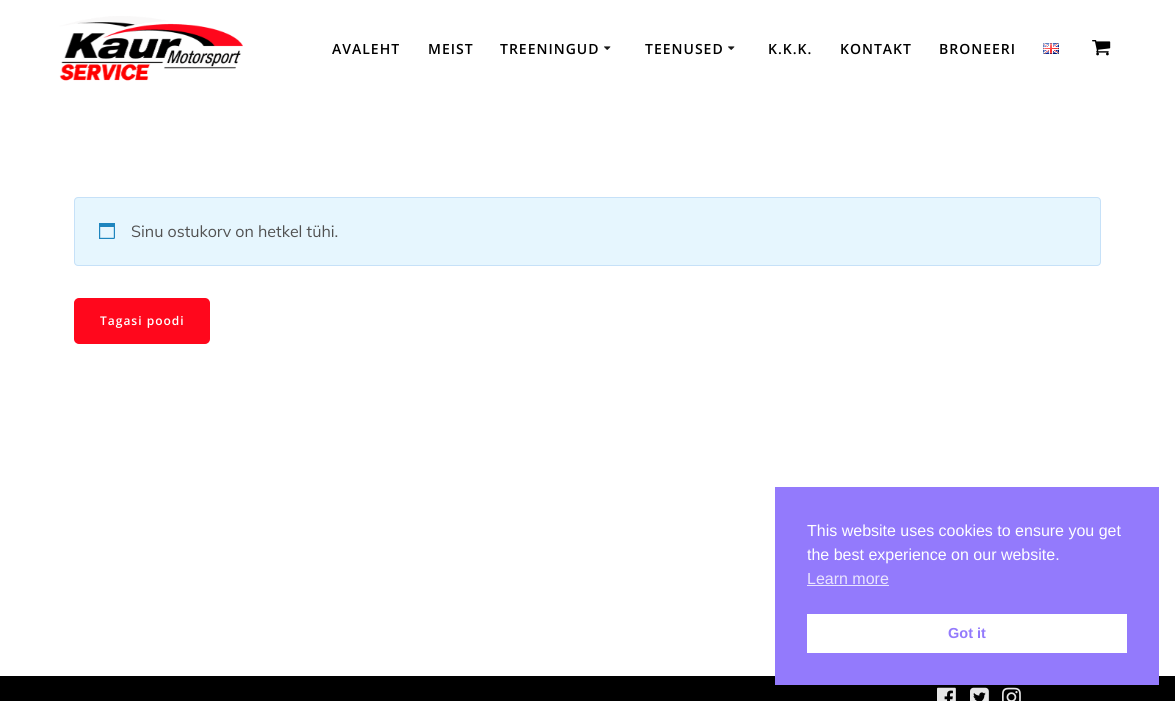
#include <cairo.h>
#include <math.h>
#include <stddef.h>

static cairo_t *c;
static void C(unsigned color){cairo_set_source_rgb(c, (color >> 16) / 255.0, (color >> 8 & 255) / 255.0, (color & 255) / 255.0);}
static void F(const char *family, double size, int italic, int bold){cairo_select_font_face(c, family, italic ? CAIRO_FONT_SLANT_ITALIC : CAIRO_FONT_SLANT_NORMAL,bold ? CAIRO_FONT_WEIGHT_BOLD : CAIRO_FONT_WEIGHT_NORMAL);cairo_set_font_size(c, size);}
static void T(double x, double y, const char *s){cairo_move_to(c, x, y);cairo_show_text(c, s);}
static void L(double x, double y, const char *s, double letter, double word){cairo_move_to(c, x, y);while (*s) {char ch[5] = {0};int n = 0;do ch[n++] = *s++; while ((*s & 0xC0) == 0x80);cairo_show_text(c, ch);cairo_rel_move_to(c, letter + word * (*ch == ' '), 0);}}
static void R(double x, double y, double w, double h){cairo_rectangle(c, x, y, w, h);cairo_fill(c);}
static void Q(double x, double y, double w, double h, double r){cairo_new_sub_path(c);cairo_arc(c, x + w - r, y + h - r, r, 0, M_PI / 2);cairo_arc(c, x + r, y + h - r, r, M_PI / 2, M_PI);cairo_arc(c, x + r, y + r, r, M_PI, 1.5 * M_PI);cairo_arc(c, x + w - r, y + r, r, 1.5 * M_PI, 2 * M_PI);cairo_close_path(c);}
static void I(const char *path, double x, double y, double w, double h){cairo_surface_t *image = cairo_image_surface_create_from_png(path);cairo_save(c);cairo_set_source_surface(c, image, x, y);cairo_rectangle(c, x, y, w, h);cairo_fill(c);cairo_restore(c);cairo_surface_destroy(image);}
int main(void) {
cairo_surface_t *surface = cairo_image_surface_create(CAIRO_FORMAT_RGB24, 1175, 701);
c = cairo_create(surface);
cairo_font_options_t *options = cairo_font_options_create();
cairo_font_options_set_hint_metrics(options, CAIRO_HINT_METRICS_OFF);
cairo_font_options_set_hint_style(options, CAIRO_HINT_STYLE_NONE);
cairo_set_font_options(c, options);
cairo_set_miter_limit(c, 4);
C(0xffffff);
cairo_paint(c);
I("1.png",59,16,184,65);
F("Open Sans SemiBold",14,0,0);
C(0x000000);
L(332,54,"AVALEHT",1,0);
L(428,54,"MEIST",1,0);
L(500,54,"TREENINGUD",1,0);
I("2.png",604,46,7,4);
L(645,54,"TEENUSED",1,0);
I("2.png",728,46,7,4);
L(768,54,"K.K.K.",1,0);
L(840,54,"KONTAKT",1,0);
L(939,54,"BRONEERI",1,0);
I("3.png",1043,43,16,11);
I("4.png",1092,40,19,16);
C(0xe6f6fe);
Q(74,197,1027,69,4);
cairo_fill(c);
Q(74.5,197.5,1026,68,3.5);
cairo_set_source_rgba(c,0.29,0.565,0.886,0.2);
cairo_set_line_width(c,1);
cairo_stroke(c);
I("5.png",99,223,16,16);
F("Muli",16,0,0);
C(0x515151);
T(131,237,"Sinu ostukorv on hetkel tühi.");
C(0xff071c);
Q(75,299,134,44,4);
cairo_fill_preserve(c);
cairo_set_line_width(c,2);
cairo_stroke(c);
F("Open Sans SemiBold",12,0,0);
C(0xffffff);
L(100,325,"Tagasi poodi",1,0);
C(0x000000);
R(0,676,1175,25);
I("6.png",937,687,19,14);
I("7.png",970,687,19,14);
I("8.png",1002,687,19,14);
C(0x937afc);
R(775,487,384,198);
F("Liberation Sans",16,0,0);
C(0xffffff);
T(807,536,"This website uses cookies to ensure you get");
T(807,560,"the best experience on our website.");
C(0xe9e4fe);
T(807,584,"Learn more");
R(807,585,82,1);
C(0xffffff);
R(807,614,320,39);
F("Liberation Sans",14.5,0,1);
C(0x937afc);
T(948,638,"Got it");
cairo_surface_write_to_png(surface, "o.png");
cairo_font_options_destroy(options);
cairo_destroy(c);
cairo_surface_destroy(surface);
return 0;
}
